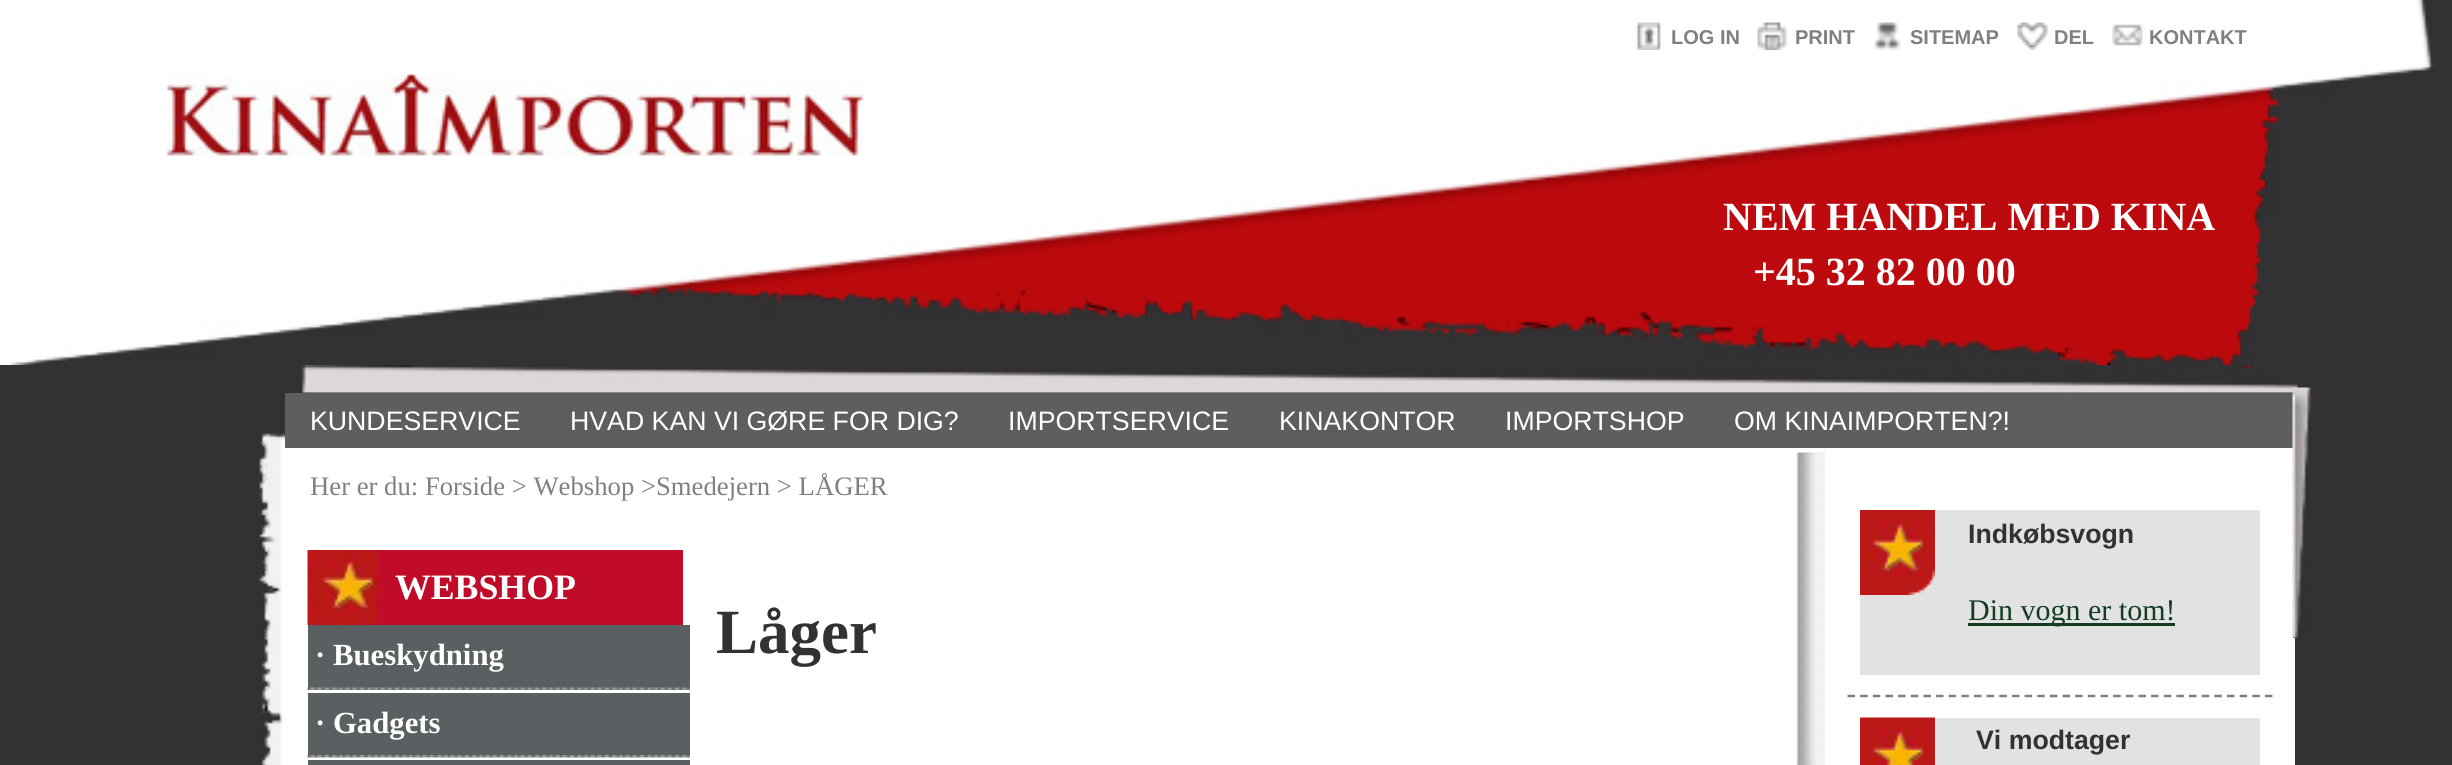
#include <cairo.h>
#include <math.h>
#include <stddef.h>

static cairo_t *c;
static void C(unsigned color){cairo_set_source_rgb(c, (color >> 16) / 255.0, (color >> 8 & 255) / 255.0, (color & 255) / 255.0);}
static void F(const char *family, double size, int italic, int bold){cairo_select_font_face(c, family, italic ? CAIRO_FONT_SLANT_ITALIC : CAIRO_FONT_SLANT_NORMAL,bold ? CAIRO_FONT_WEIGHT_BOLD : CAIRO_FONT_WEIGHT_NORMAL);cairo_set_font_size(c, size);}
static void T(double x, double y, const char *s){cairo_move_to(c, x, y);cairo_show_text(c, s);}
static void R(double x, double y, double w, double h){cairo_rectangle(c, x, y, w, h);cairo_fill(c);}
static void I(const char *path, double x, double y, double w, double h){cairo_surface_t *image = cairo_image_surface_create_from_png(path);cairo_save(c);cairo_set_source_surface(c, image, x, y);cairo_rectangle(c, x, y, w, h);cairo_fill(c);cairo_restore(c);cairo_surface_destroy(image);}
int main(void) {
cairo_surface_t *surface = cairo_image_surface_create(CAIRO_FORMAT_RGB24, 2452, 765);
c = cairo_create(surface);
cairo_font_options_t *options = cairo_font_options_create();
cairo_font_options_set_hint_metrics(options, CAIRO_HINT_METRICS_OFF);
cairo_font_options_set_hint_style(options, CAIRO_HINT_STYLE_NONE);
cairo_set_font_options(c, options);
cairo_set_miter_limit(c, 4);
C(0x323133);
cairo_paint(c);
I("1.png",0,0,2433,365);
I("2.png",166,74,698,83);
I("3.png",1636,22,25,28);
F("Liberation Sans",20,0,1);
C(0x808080);
T(1671,44,"LOG IN");
I("4.png",1757,22,31,28);
T(1795,44,"PRINT");
I("5.png",1874,22,27,28);
T(1910,44,"SITEMAP");
I("6.png",2017,22,31,28);
T(2054,44,"DEL");
I("7.png",2112,24,31,22);
T(2149,44,"KONTAKT");
F("Liberation Serif",40,0,1);
C(0xffffff);
T(1723,230,"NEM HANDEL MED KINA");
T(1753,285,"+45 32 82 00 00");
I("8.png",259,433,26,332);
I("9.png",301,365,1997,28);
R(285,448,2010,317);
C(0x5c5e60);
R(285,393,2008,55);
F("Liberation Sans",26.7,0,0);
C(0xffffff);
T(310,430,"KUNDESERVICE");
T(570,430,"HVAD KAN VI GØRE FOR DIG?");
T(1008,430,"IMPORTSERVICE");
T(1279,430,"KINAKONTOR");
T(1505,430,"IMPORTSHOP");
T(1734,430,"OM KINAIMPORTEN?!");
F("Liberation Serif",26.7,0,0);
C(0x808080);
T(310,495,"Her er du: Forside > Webshop >Smedejern > LÅGER");
C(0xc10c29);
R(377,550,306,75);
I("10.png",307,550,71,75);
F("Liberation Serif",35.75,0,1);
C(0xffffff);
T(395,599,"WEBSHOP");
C(0x5a6061);
R(308,625,382,63);
F("Liberation Serif",30.75,0,1);
C(0xffffff);
T(315,665,"· Bueskydning");
I("11.png",307,687,383,3);
C(0x5a6061);
R(308,693,382,62);
C(0xffffff);
T(315,733,"· Gadgets");
I("12.png",307,755,383,3);
C(0x5a6061);
R(308,760,382,5);
F("Liberation Serif",63,0,1);
C(0x323133);
T(716,653,"Låger");
I("13.png",1796,452,29,313);
C(0xe2e2e2);
R(1860,510,400,165);
I("14.png",1860,510,75,85);
F("Liberation Sans",26.7,0,1);
C(0x323133);
T(1968,543,"Indkøbsvogn");
C(0x143c24);
R(1968,623,207,3);
F("Liberation Serif",30,0,0);
T(1968,620,"Din vogn er tom!");
cairo_new_path(c);
cairo_move_to(c,1847.5,696);
cairo_line_to(c,2272.5,696);
C(0x808080);
cairo_set_line_width(c,2.5);
cairo_set_dash(c,(double[]){7.5,5.15},2,0);
cairo_stroke(c);
C(0xe2e2e2);
R(1935,718,325,47);
I("15.png",1860,717,75,48);
F("Liberation Sans",26.7,0,1);
C(0x323133);
T(1976,749,"Vi modtager");
R(2293,388,5,250);
I("16.png",2292,387,19,251);
cairo_surface_write_to_png(surface, "o.png");
cairo_font_options_destroy(options);
cairo_destroy(c);
cairo_surface_destroy(surface);
return 0;
}
